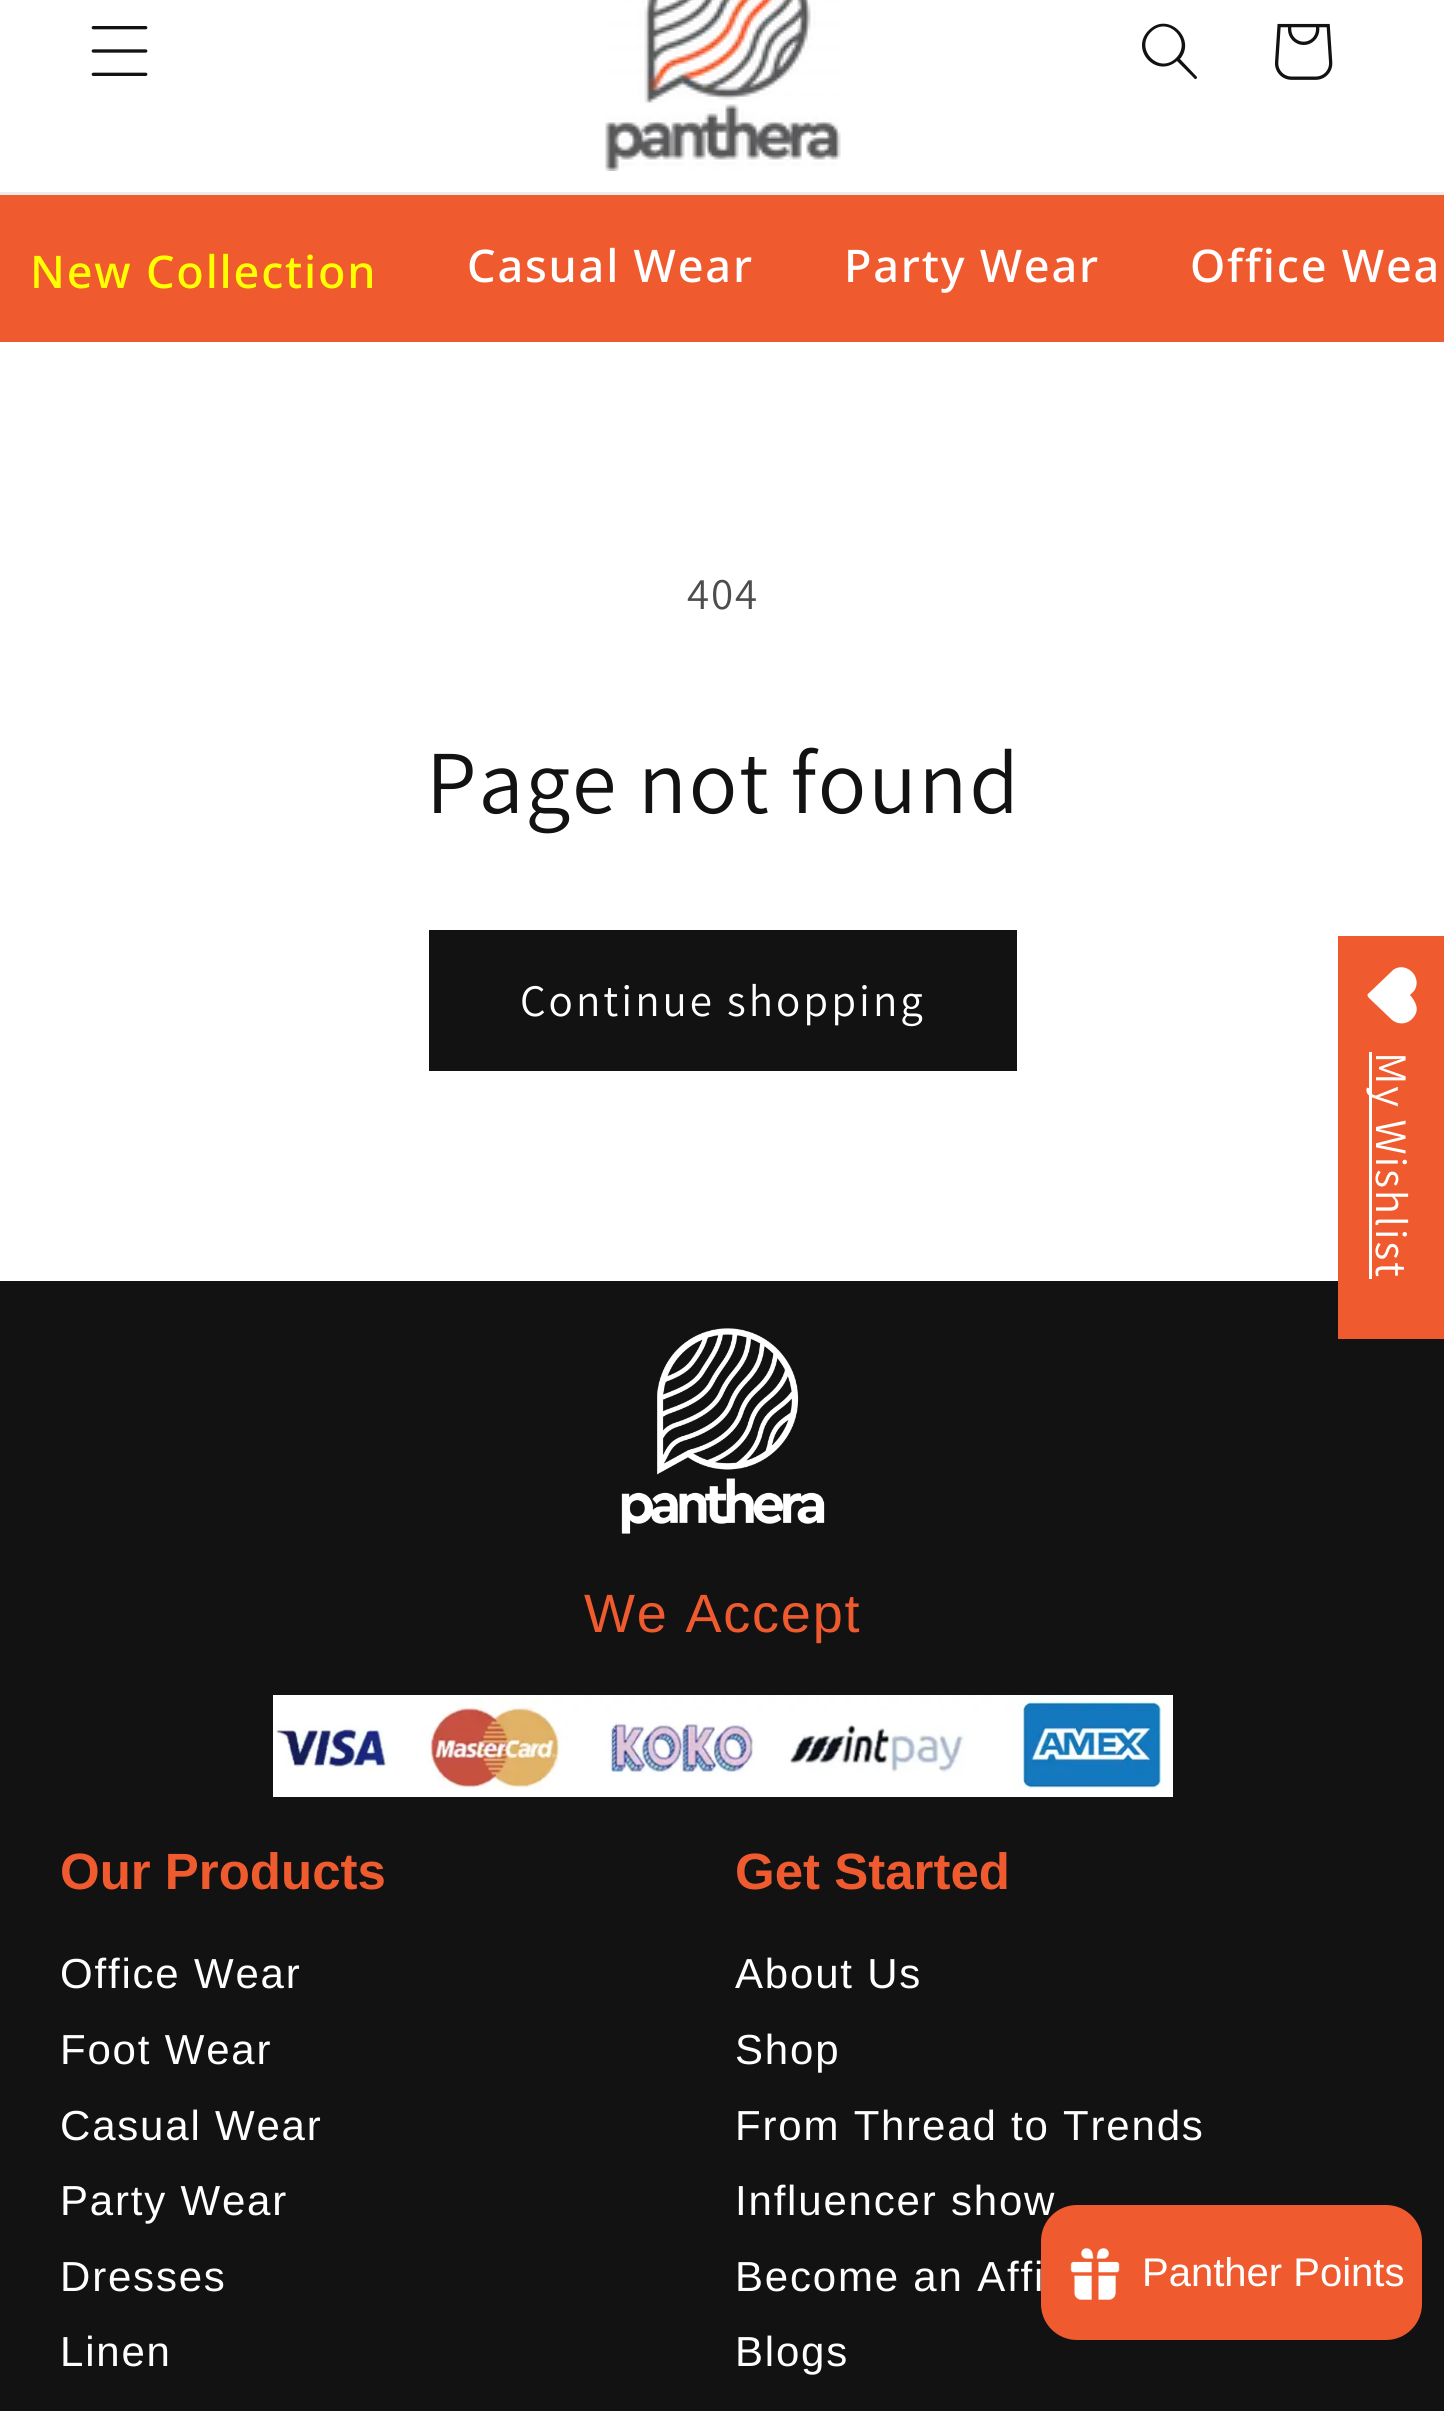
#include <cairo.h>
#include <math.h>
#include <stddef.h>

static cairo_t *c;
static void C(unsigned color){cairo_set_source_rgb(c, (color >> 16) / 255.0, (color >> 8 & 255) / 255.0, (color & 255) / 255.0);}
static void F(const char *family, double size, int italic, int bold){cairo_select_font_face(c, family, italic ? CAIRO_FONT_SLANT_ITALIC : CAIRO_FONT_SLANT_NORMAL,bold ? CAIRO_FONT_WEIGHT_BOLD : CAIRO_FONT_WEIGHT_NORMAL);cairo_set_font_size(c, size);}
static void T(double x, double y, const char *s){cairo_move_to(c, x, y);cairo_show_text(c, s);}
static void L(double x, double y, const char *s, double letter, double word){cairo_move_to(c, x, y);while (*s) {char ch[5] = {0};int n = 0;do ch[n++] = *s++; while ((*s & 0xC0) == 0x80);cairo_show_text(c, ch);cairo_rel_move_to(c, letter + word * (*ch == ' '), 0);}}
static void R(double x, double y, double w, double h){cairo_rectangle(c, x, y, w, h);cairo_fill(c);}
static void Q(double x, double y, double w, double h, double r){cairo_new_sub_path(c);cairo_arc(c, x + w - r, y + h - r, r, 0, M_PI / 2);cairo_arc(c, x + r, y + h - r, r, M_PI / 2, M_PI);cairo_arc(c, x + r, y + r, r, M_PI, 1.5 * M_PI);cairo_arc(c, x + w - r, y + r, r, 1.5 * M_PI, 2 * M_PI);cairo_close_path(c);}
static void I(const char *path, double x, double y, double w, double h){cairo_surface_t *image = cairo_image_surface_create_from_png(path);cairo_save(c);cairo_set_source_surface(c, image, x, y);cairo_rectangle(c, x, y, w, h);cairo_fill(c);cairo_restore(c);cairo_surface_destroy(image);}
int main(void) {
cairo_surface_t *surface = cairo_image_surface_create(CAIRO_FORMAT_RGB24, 1444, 2411);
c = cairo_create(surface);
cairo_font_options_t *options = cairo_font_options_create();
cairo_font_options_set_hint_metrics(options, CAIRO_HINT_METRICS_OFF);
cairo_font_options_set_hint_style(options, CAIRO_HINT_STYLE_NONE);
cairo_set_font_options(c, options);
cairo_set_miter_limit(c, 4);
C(0xffffff);
cairo_paint(c);
C(0xececec);
R(0,192,1444,3);
I("1.png",91,26,57,50);
I("2.png",605,0,236,171);
C(0x121212);
cairo_set_fill_rule(c,CAIRO_FILL_RULE_EVEN_ODD);
cairo_new_path(c);
cairo_move_to(c,1176,58);
cairo_curve_to(c,1159,75,1134,49,1151,32);
cairo_curve_to(c,1168,15,1193,41,1176,58);
cairo_move_to(c,1177,61);
cairo_curve_to(c,1156,79,1129,49,1149,30);
cairo_curve_to(c,1168,11,1197,39,1180,59);
cairo_line_to(c,1197,77);
cairo_curve_to(c,1197,79,1195,80,1194,78);
cairo_close_path(c);
cairo_fill(c);
I("3.png",1275,23,58,57);
C(0xef5b2e);
R(0,195,1444,147);
F("Noto Sans Medium",45,0,0);
C(0xffff00);
L(30,288,"New Collection",1.8,0);
C(0xffffff);
L(467,282,"Casual Wear",1.8,0);
L(844,282,"Party Wear",1.8,0);
L(1190,282,"Office Wea",1.8,0);
F("Assistant",45,0,0);
C(0x4d4d4d);
L(687,609,"404",1.8,0);
F("Assistant",90,0,0);
C(0x121212);
L(426,813,"Page not found",1.8,0);
R(429,930,588,141);
F("Assistant",45,0,0);
C(0xffffff);
L(520,1016,"Continue shopping",3,0);
C(0x121212);
R(0,1281,1444,1130);
C(0xef5b2e);
R(1338,936,106,403);
C(0xffffff);
cairo_set_fill_rule(c,CAIRO_FILL_RULE_WINDING);
cairo_new_path(c);
cairo_move_to(c,1413,1018);
cairo_curve_to(c,1420,1010,1416,1002,1410,995);
cairo_line_to(c,1412,993);
cairo_curve_to(c,1418,988,1418,979,1413,973);
cairo_curve_to(c,1407,966,1397,965,1391,972);
cairo_line_to(c,1369,993);
cairo_curve_to(c,1367,994,1367,996,1369,998);
cairo_line_to(c,1391,1019);
cairo_curve_to(c,1397,1025,1407,1025,1413,1018);
cairo_close_path(c);
cairo_fill(c);
R(1369,1052,3,227);
cairo_save(c);
cairo_translate(c,1376,1052);
cairo_rotate(c,90 * M_PI / 180);
L(0,0,"My Wishlist",1.8,0);
cairo_restore(c);
I("4.png",621,1328,204,206);
F("Liberation Sans",54,0,0);
C(0xef5b2e);
L(584,1632,"We Accept",1.8,0);
I("5.png",273,1695,900,102);
F("Liberation Sans",51,0,1);
T(60,1889,"Our Products");
F("Liberation Sans",42,0,0);
C(0xffffff);
L(60,1988,"Office Wear",1.8,0);
L(60,2064,"Foot Wear",1.8,0);
L(60,2140,"Casual Wear",1.8,0);
L(60,2215,"Party Wear",1.8,0);
L(60,2291,"Dresses",1.8,0);
L(60,2366,"Linen",1.8,0);
F("Liberation Sans",51,0,1);
C(0xef5b2e);
T(735,1889,"Get Started");
F("Liberation Sans",42,0,0);
C(0xffffff);
L(735,1988,"About Us",1.8,0);
L(735,2064,"Shop",1.8,0);
L(735,2140,"From Thread to Trends",1.8,0);
L(735,2215,"Influencer show",1.8,0);
L(735,2291,"Become an Affi",1.8,0);
L(735,2366,"Blogs",1.8,0);
C(0xef5b2e);
Q(1041,2205,381,135,36);
cairo_fill(c);
I("6.png",1070,2248,50,52);
F("Liberation Sans",40,0,0);
C(0xffffff);
T(1142,2286,"Panther Points");
cairo_surface_write_to_png(surface, "o.png");
cairo_font_options_destroy(options);
cairo_destroy(c);
cairo_surface_destroy(surface);
return 0;
}
